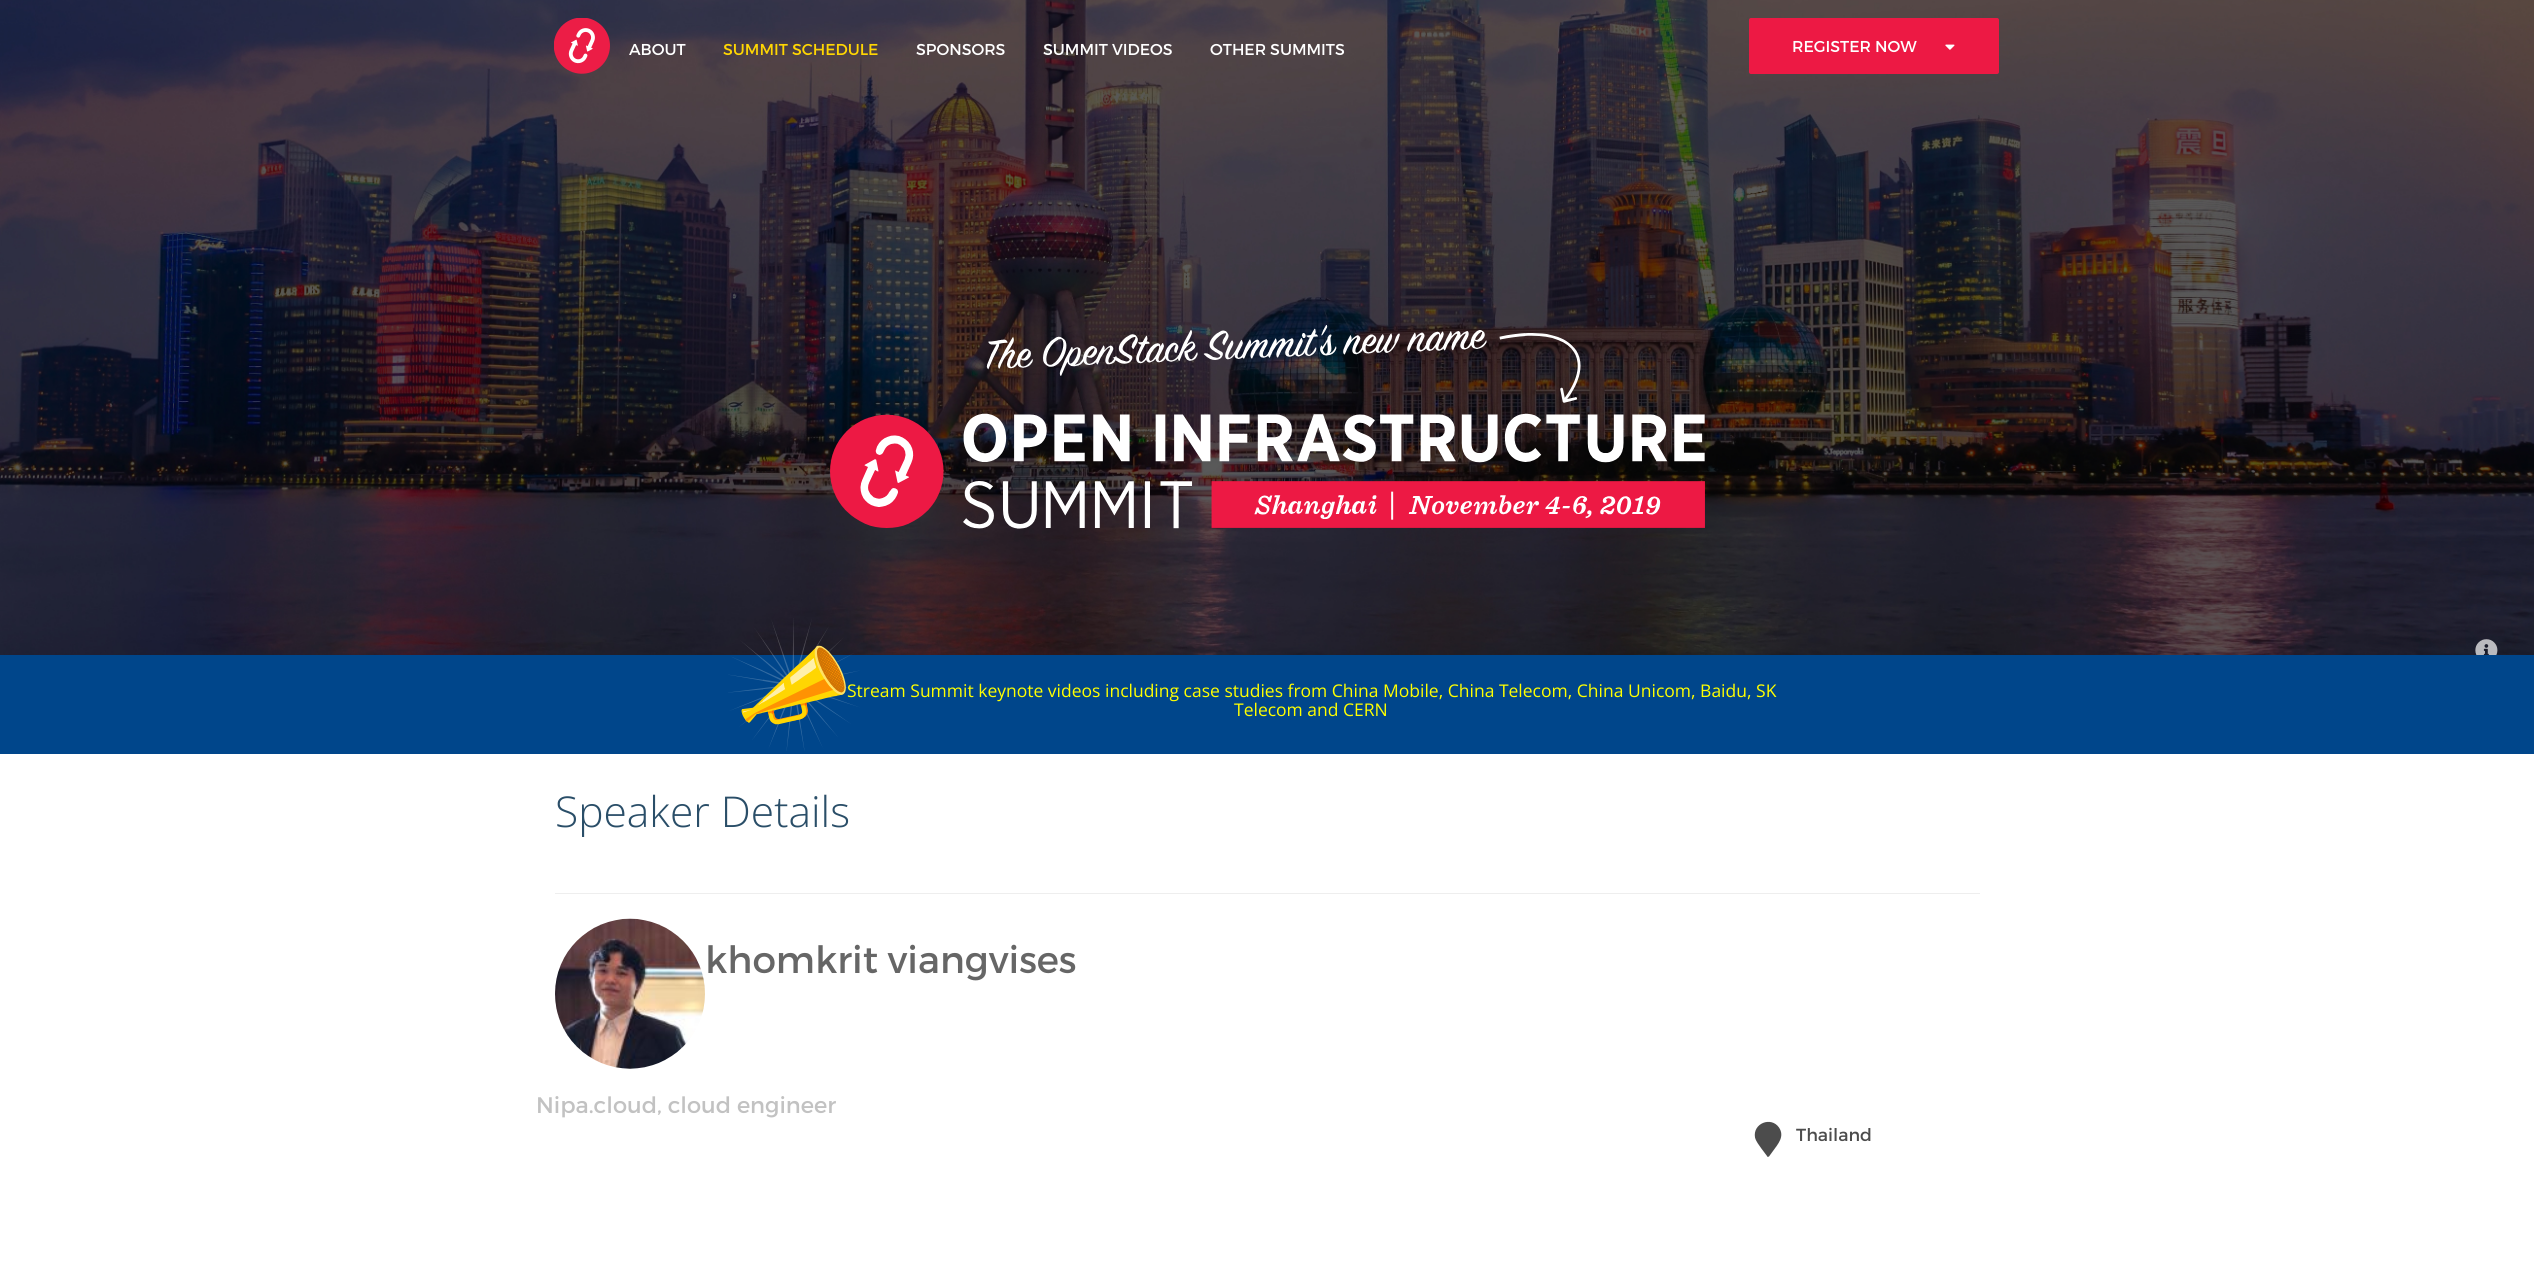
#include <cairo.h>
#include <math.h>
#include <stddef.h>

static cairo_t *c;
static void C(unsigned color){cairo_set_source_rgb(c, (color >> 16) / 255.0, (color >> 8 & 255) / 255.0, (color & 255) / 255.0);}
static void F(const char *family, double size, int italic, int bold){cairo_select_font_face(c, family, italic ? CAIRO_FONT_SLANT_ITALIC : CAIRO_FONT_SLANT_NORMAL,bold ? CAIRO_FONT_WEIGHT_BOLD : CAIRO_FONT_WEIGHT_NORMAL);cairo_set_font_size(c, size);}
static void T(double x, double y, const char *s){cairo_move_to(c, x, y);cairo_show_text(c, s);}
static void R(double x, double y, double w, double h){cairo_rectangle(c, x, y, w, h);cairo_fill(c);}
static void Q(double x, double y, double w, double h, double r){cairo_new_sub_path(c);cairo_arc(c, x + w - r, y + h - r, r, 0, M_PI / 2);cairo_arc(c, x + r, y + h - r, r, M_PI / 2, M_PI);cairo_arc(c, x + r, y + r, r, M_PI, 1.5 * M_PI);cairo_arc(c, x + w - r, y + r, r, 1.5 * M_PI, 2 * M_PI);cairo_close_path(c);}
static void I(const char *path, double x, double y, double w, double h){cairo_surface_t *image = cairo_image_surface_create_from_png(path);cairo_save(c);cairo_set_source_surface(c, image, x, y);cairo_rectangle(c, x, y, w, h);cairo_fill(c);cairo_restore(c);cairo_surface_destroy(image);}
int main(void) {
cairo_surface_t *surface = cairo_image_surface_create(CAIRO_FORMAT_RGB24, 2534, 1264);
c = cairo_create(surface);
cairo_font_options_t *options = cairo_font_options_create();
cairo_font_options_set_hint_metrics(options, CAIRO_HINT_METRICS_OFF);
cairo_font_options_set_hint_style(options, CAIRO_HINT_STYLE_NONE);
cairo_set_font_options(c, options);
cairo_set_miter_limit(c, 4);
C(0xffffff);
cairo_paint(c);
I("1.png",0,0,2534,655);
I("2.png",554,18,56,56);
F("Montserrat",15.75,0,0);
C(0xffffff);
T(629,55,"ABOUT");
C(0xffd602);
T(723,55,"SUMMIT SCHEDULE");
C(0xffffff);
T(916,55,"SPONSORS");
T(1043,55,"SUMMIT VIDEOS");
T(1210,55,"OTHER SUMMITS");
C(0xed1944);
Q(1749,18,250,56,2);
cairo_fill(c);
C(0xffffff);
T(1792,52,"REGISTER NOW");
I("3.png",1945,44,10,6);
I("4.png",830,325,875,204);
I("5.png",2475,639,23,16);
C(0x00468b);
R(0,655,2534,99);
F("Open Sans",17.5,0,0);
C(0xffff00);
T(847,697,"Stream Summit keynote videos including case studies from China Mobile, China Telecom, China Unicom, Baidu, SK");
I("6.png",728,618,132,133);
T(1234,716,"Telecom and CERN");
F("Open Sans Light",42.5,0,0);
C(0x2a4e68);
T(555,827,"Speaker Details");
C(0xeeeeee);
R(555,893,1425,1);
I("7.png",555,918,150,151);
F("Montserrat",37.5,0,0);
C(0x666666);
T(705,973,"khomkrit viangvises");
F("Montserrat",22.5,0,0);
C(0xc2c2c2);
T(536,1113,"Nipa.cloud, cloud engineer");
C(0x4c4c4c);
cairo_new_path(c);
cairo_move_to(c,1767,1156);
cairo_line_to(c,1761,1148);
cairo_curve_to(c,1759,1145,1756,1141.5,1755,1137.5);
cairo_curve_to(c,1752.5,1123.5,1771,1116,1779,1127.5);
cairo_curve_to(c,1785,1136.5,1778,1144,1773,1151);
cairo_line_to(c,1769,1156.5);
cairo_curve_to(c,1768,1157,1767,1157,1767,1156);
cairo_close_path(c);
cairo_fill(c);
F("Montserrat",17.5,0,0);
T(1796,1141,"Thailand");
cairo_surface_write_to_png(surface, "o.png");
cairo_font_options_destroy(options);
cairo_destroy(c);
cairo_surface_destroy(surface);
return 0;
}
